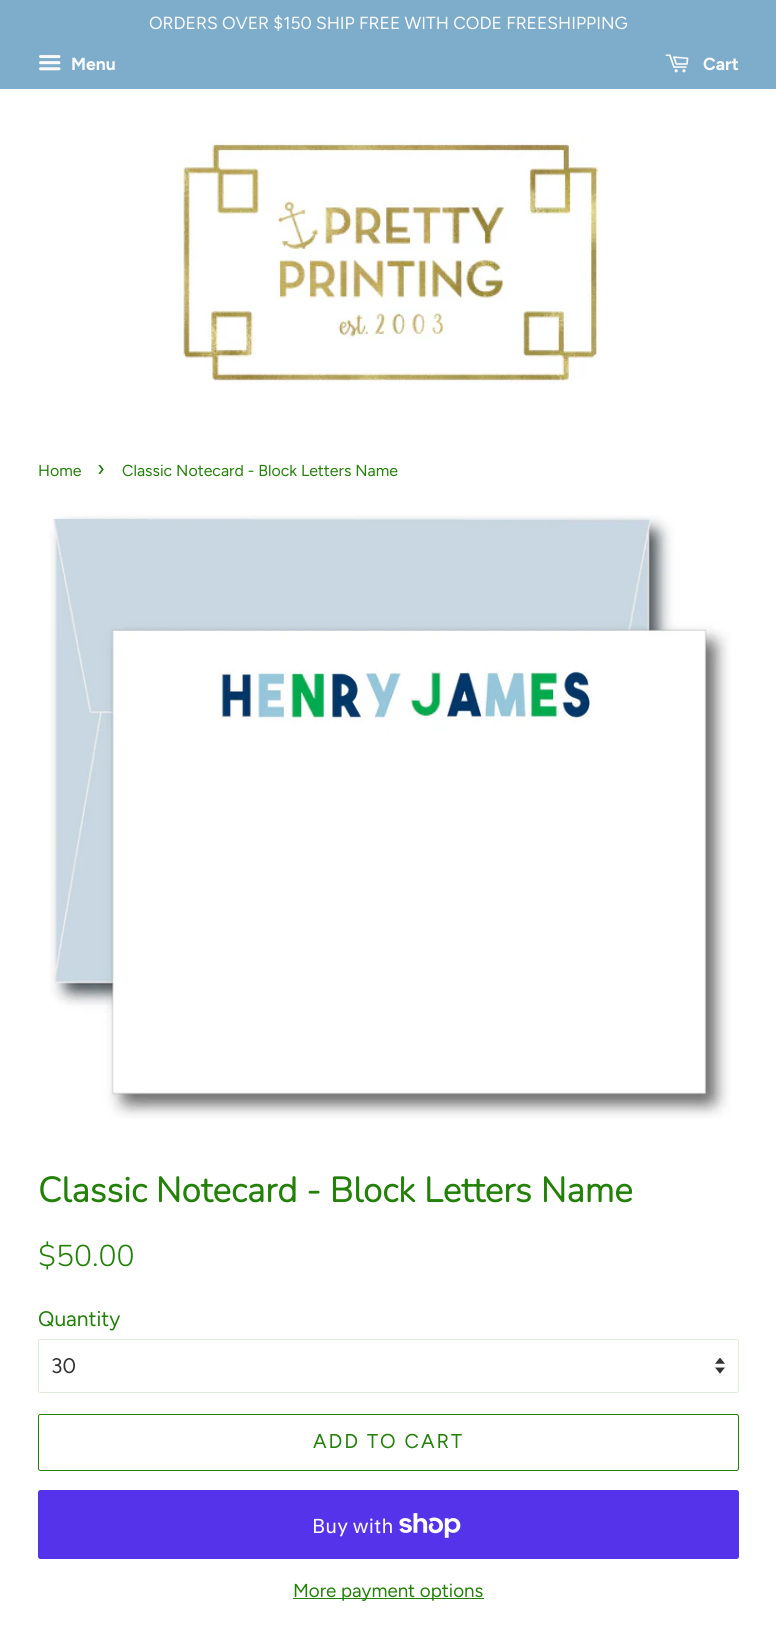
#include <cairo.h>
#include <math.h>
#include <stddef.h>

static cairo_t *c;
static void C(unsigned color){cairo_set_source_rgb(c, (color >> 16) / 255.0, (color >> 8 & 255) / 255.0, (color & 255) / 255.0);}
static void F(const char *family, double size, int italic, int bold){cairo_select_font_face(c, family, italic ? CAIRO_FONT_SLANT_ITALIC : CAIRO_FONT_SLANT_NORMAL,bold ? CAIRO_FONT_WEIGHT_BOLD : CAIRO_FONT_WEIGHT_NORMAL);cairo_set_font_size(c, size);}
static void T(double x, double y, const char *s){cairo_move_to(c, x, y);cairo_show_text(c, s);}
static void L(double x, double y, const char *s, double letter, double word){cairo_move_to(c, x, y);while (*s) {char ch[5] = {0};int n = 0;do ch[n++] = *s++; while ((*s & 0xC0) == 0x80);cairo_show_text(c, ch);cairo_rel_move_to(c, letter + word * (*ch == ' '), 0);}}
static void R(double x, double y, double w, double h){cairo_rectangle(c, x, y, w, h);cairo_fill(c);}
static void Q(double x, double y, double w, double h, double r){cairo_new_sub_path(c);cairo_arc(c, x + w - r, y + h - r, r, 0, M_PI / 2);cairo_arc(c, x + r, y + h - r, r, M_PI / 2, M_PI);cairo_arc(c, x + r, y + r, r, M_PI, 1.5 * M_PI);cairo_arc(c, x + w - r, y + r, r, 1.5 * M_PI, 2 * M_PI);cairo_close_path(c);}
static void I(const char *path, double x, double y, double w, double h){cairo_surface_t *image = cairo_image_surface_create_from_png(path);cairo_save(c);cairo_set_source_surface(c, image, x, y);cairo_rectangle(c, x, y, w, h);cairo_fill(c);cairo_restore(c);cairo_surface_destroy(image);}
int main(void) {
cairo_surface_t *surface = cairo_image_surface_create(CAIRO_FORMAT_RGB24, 776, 1648);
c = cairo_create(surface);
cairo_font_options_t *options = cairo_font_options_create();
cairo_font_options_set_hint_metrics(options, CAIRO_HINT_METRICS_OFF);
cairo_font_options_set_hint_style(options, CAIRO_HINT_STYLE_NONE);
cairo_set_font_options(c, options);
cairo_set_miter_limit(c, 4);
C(0xffffff);
cairo_paint(c);
C(0x7dadca);
R(0,0,776,89);
F("Figtree",17.5,0,0);
C(0xfafafa);
T(149,29,"ORDERS OVER $150 SHIP FREE WITH CODE FREESHIPPING");
I("1.png",39,55,22,16);
F("Figtree",17.5,0,1);
T(71,70,"Menu");
I("2.png",665,54,24,19);
T(703,70,"Cart");
I("3.png",178,139,421,245);
F("Figtree",15.9,0,0);
C(0x238008);
T(38,476,"Home");
F("Figtree",22,0,0);
T(97,476,"›");
F("Figtree",15.9,0,0);
T(122,476,"Classic Notecard - Block Letters Name");
I("4.png",50,515,681,604);
F("Nunito",35,0,1);
T(38,1202,"Classic Notecard - Block Letters Name");
F("Nunito Light",30,0,0);
T(38,1266,"$50.00");
F("Figtree",21,0,0);
T(38,1326,"Quantity");
I("5.png",715,1358,10,16);
Q(38.5,1339.5,700,53,2);
C(0xdeecda);
cairo_set_line_width(c,1);
cairo_stroke(c);
C(0x333333);
T(51,1373,"30");
Q(38.5,1414.5,700,56,2);
C(0x238008);
cairo_stroke(c);
F("Figtree",20,0,0);
L(313,1448,"ADD TO CART",2,0);
C(0x5433eb);
Q(38,1490,701,69,2.5);
cairo_fill(c);
F("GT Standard",20,0,0);
C(0xfafafa);
T(312,1533,"Buy with");
I("6.png",399,1513,62,25);
C(0x238008);
R(293,1598,191,1);
F("Figtree",18.75,0,0);
T(293,1597,"More payment options");
cairo_surface_write_to_png(surface, "o.png");
cairo_font_options_destroy(options);
cairo_destroy(c);
cairo_surface_destroy(surface);
return 0;
}
